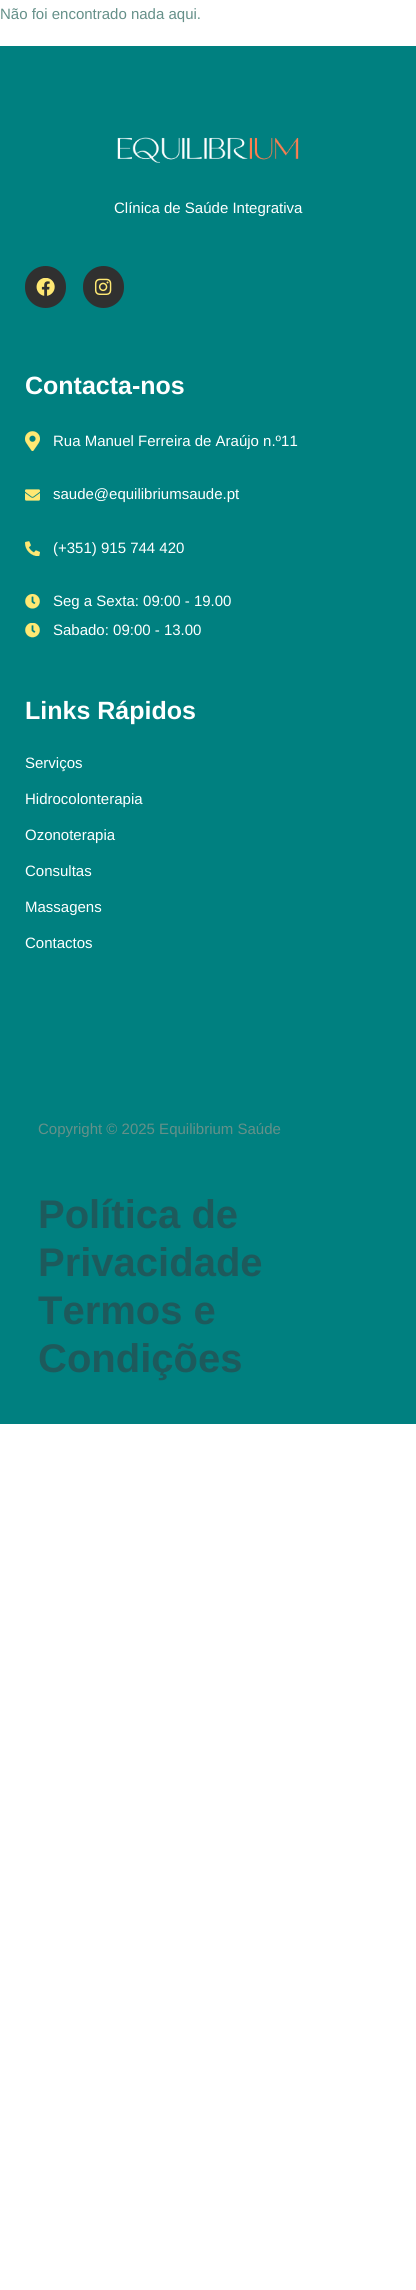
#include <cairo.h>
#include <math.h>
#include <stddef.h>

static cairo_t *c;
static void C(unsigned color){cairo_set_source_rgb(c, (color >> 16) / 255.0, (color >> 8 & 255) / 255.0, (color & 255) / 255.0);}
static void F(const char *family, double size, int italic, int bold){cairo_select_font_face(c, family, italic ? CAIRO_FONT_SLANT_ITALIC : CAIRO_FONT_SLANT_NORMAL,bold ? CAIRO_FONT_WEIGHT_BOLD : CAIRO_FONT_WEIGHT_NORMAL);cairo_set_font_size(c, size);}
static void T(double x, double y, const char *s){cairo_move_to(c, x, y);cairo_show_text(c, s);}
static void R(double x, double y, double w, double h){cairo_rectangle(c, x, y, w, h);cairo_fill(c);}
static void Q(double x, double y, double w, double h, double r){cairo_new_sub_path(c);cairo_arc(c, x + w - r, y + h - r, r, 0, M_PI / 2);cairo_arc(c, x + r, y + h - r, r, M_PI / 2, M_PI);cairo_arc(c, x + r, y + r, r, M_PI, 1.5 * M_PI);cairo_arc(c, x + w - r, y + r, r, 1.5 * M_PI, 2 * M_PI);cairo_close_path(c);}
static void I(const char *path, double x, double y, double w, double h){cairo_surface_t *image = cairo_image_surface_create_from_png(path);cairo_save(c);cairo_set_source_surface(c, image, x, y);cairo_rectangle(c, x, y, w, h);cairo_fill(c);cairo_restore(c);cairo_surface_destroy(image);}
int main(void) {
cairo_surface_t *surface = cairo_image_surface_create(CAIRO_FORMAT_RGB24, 416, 2290);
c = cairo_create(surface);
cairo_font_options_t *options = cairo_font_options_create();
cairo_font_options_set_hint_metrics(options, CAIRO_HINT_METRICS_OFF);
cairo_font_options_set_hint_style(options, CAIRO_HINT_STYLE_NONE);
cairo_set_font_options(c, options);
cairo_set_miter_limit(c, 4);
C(0xffffff);
cairo_paint(c);
F("Liberation Sans",15,0,0);
C(0x659089);
T(0,19,"Não foi encontrado nada aqui.");
C(0x008080);
R(0,46,416,1378);
I("1.png",117,137,182,26);
C(0xffffff);
T(114,213,"Clínica de Saúde Integrativa");
C(0x303030);
Q(25,266,41,42,20.5);
cairo_fill(c);
I("2.png",36,278,19,18);
Q(83,266,41,42,20.5);
cairo_fill(c);
I("3.png",94,278,18,17);
F("Liberation Sans",25,0,1);
C(0xffffff);
T(25,394,"Contacta-nos");
I("4.png",25,431,15,20);
F("Liberation Sans",15,0,0);
T(53,446,"Rua Manuel Ferreira de Araújo n.º11");
I("5.png",25,489,15,12);
T(53,499,"saude@equilibriumsaude.pt");
I("6.png",25,541,15,15);
T(53,553,"(+351) 915 744 420");
I("7.png",25,594,15,15);
T(53,606,"Seg a Sexta: 09:00 - 19.00");
I("8.png",25,623,15,15);
T(53,635,"Sabado: 09:00 - 13.00");
F("Liberation Sans",25,0,1);
T(25,719,"Links Rápidos");
F("Liberation Sans",15,0,0);
T(25,768,"Serviços");
T(25,804,"Hidrocolonterapia");
T(25,840,"Ozonoterapia");
T(25,876,"Consultas");
T(25,912,"Massagens");
T(25,948,"Contactos");
C(0x659089);
T(38,1134,"Copyright © 2025 Equilibrium Saúde");
F("Liberation Sans",40,0,1);
C(0x1d5a5c);
T(38,1228,"Política de");
T(38,1276,"Privacidade");
T(38,1324,"Termos e");
T(38,1372,"Condições");
cairo_surface_write_to_png(surface, "o.png");
cairo_font_options_destroy(options);
cairo_destroy(c);
cairo_surface_destroy(surface);
return 0;
}
